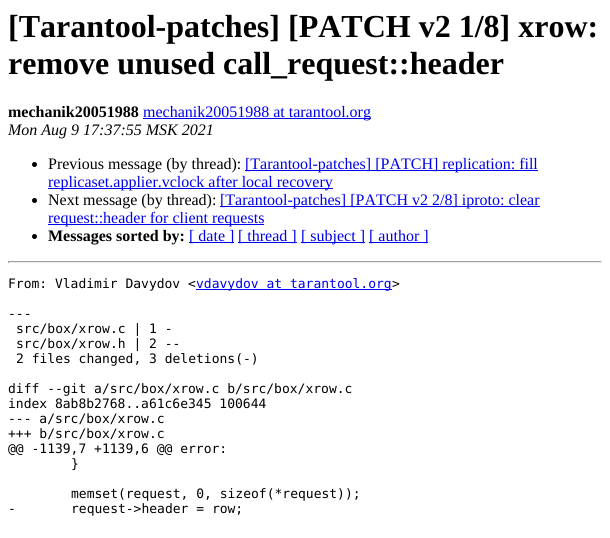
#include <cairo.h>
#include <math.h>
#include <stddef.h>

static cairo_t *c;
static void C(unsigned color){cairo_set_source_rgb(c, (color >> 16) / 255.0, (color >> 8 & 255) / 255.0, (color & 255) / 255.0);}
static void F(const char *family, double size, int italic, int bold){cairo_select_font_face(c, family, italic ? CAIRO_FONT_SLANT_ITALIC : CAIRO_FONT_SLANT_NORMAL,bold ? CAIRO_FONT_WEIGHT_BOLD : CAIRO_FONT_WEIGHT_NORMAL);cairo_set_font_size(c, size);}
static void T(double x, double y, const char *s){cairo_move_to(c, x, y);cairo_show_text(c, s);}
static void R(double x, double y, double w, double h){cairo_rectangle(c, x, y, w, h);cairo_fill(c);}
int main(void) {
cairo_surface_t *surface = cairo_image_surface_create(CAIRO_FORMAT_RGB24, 610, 538);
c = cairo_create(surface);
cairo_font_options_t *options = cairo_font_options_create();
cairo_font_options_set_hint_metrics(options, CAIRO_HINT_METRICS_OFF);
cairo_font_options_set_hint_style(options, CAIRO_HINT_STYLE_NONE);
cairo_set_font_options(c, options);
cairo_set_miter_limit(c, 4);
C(0xffffff);
cairo_paint(c);
F("Liberation Serif",32,0,1);
C(0x000000);
T(8,37,"[Tarantool-patches] [PATCH v2 1/8] xrow:");
T(8,74,"remove unused call_request::header");
F("Liberation Serif",16,0,1);
T(8,117,"mechanik20051988");
C(0x0000ee);
R(143,118,228,1);
F("Liberation Serif",16,0,0);
T(143,117,"mechanik20051988 at tarantool.org");
F("Liberation Serif",16,1,0);
C(0x000000);
T(8,135,"Mon Aug 9 17:37:55 MSK 2021");
cairo_new_path(c);
cairo_arc(c,34.5,164.5,2.5,0,2 * M_PI);
cairo_fill(c);
F("Liberation Serif",16,0,0);
T(48,169,"Previous message (by thread):");
C(0x0000ee);
R(245,170,293,1);
T(245,169,"[Tarantool-patches] [PATCH] replication: fill");
R(48,188,285,1);
T(48,187,"replicaset.applier.vclock after local recovery");
C(0x000000);
cairo_new_path(c);
cairo_arc(c,34.5,200.5,2.5,0,2 * M_PI);
cairo_fill(c);
T(48,205,"Next message (by thread):");
C(0x0000ee);
R(220,206,320,1);
T(220,205,"[Tarantool-patches] [PATCH v2 2/8] iproto: clear");
R(48,224,216,1);
T(48,223,"request::header for client requests");
C(0x000000);
cairo_new_path(c);
cairo_arc(c,34.5,236.5,2.5,0,2 * M_PI);
cairo_fill(c);
F("Liberation Serif",16,0,1);
T(48,241,"Messages sorted by:");
C(0x0000ee);
R(189,242,45,1);
F("Liberation Serif",16,0,0);
T(189,241,"[ date ]");
R(238,242,59,1);
T(238,241,"[ thread ]");
R(301,242,64,1);
T(301,241,"[ subject ]");
R(369,242,59,1);
T(369,241,"[ author ]");
C(0x9f9f9f);
R(8,261,594,1);
C(0xeeeeee);
R(601,261,1,2);
R(8,262,594,1);
C(0x9f9f9f);
R(8,261,1,2);
F("DejaVu Sans Mono",13,0,0);
C(0x000000);
T(8,288,"From: Vladimir Davydov <");
C(0x0000ee);
R(196,289,196,1);
T(196,288,"vdavydov at tarantool.org");
C(0x000000);
T(392,288,">");
T(8,318,"---");
T(16,333,"src/box/xrow.c | 1 -");
T(16,348,"src/box/xrow.h | 2 --");
T(16,363,"2 files changed, 3 deletions(-)");
T(8,393,"diff --git a/src/box/xrow.c b/src/box/xrow.c");
T(8,408,"index 8ab8b2768..a61c6e345 100644");
T(8,423,"--- a/src/box/xrow.c");
T(8,438,"+++ b/src/box/xrow.c");
T(8,453,"@@ -1139,7 +1139,6 @@ error:");
T(71,468,"}");
T(71,498,"memset(request, 0, sizeof(*request));");
T(8,513,"-");
T(71,513,"request->header = row;");
cairo_surface_write_to_png(surface, "o.png");
cairo_font_options_destroy(options);
cairo_destroy(c);
cairo_surface_destroy(surface);
return 0;
}
